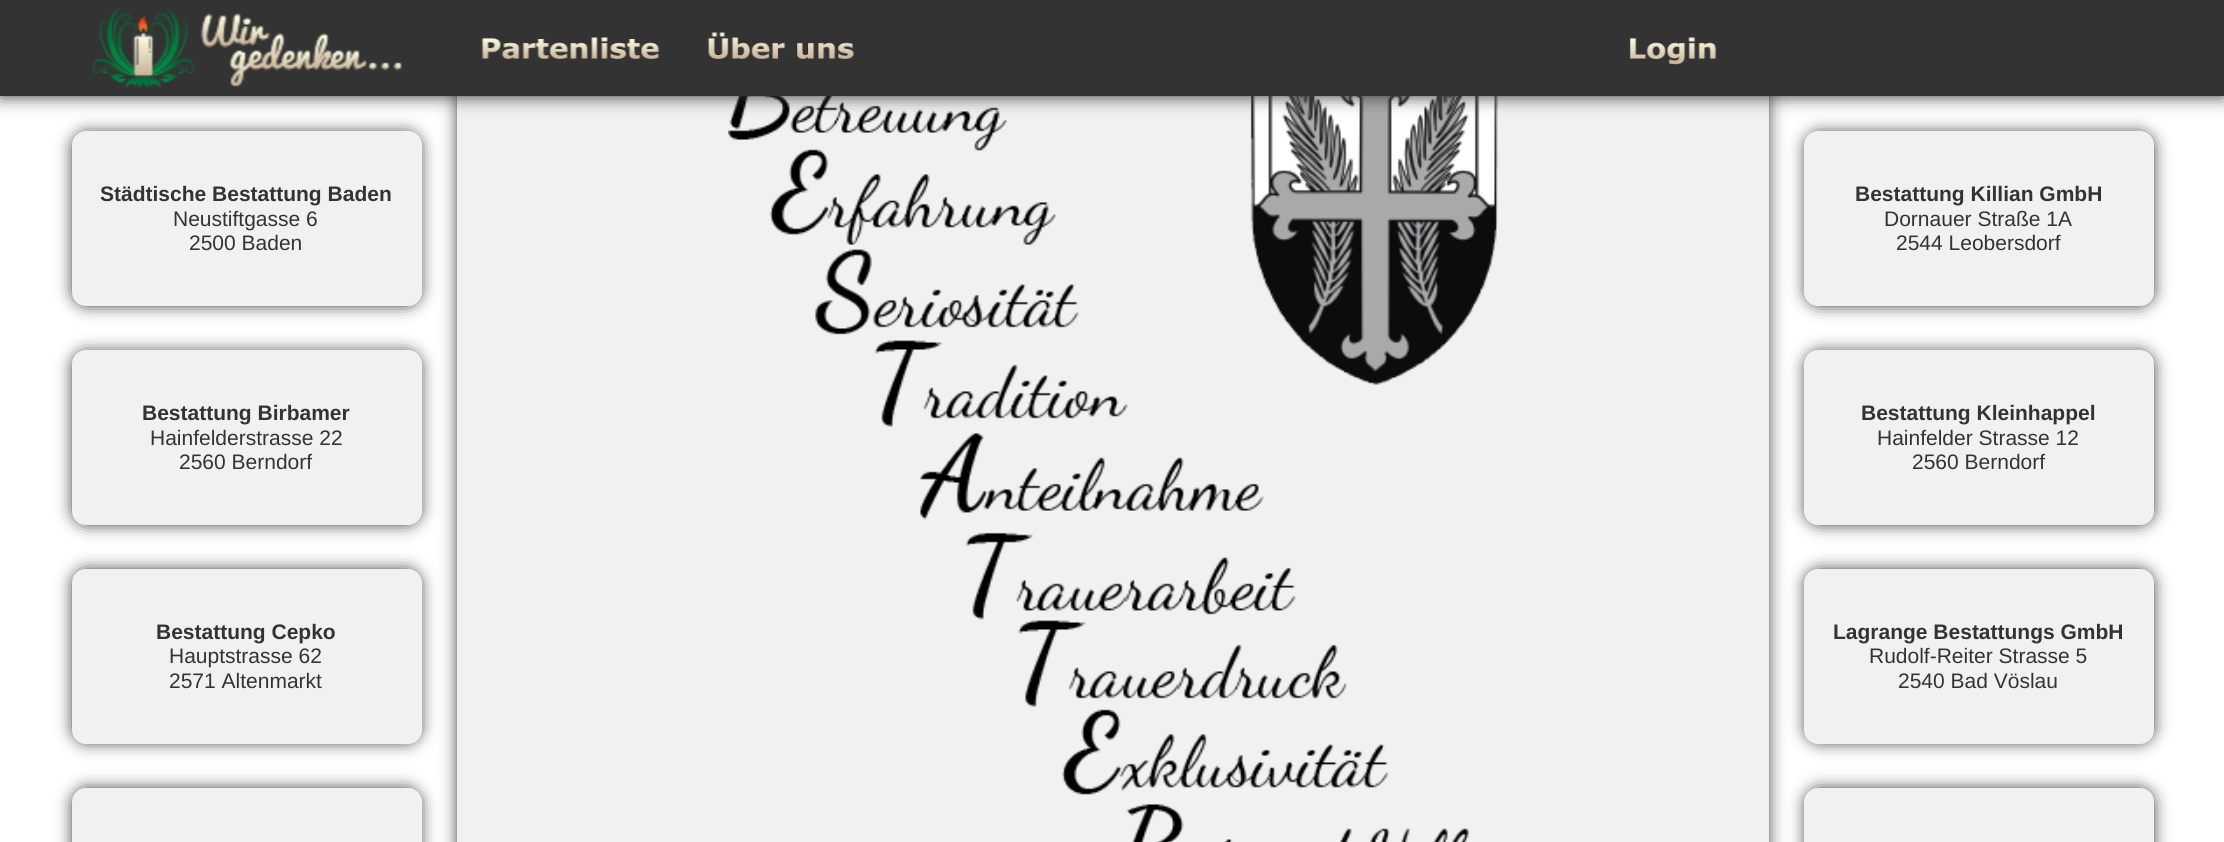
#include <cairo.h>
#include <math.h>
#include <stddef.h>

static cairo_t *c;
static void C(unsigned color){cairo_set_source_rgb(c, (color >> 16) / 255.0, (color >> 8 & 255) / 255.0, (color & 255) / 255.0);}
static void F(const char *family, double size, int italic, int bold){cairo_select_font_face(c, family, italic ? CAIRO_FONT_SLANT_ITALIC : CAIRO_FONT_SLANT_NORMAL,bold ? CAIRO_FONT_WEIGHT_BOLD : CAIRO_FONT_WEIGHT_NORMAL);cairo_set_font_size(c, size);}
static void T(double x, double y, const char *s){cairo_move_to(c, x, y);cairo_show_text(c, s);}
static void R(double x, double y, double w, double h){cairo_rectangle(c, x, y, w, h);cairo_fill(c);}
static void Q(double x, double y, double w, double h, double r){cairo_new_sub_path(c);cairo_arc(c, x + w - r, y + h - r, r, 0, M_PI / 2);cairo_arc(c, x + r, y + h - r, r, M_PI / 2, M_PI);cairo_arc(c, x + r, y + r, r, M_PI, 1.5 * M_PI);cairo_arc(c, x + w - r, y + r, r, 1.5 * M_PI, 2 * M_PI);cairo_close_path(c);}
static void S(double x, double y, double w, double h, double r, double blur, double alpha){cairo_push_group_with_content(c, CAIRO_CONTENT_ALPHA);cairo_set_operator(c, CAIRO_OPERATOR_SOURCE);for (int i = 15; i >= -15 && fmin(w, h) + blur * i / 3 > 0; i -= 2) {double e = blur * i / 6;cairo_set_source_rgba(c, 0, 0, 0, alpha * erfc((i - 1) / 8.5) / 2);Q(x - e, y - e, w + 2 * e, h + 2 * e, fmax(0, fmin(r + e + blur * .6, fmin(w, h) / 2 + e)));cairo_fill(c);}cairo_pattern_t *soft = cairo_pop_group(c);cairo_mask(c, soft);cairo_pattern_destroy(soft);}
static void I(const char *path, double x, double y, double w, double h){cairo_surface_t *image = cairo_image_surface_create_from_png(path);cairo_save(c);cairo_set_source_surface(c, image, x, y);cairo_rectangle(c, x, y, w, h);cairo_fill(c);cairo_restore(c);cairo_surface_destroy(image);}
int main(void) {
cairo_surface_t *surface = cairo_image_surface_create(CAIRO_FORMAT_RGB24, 2224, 842);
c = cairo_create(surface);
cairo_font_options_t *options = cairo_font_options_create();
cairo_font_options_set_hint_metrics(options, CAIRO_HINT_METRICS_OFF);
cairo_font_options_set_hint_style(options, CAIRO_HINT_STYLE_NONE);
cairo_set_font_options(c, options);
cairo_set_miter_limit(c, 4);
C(0xffffff);
cairo_paint(c);
C(0x000000);
S(460,-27,1306,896,0,9,1);
C(0xf1f1f1);
R(457,96,1312,746);
I("5.png",728,96,770,746);
C(0x333333);
S(0,0,2224,96,0,9,1);
C(0x333333);
R(0,0,2224,96);
I("1.png",92,8,311,80);
I("2.png",481,37,179,22);
I("3.png",708,32,147,27);
I("4.png",1629,37,88,28);
C(0x000000);
S(75,135,343,168,11,9,1);
C(0xf1f1f1);
Q(72,131,350,175,14);
cairo_fill(c);
F("Liberation Sans",21,0,1);
C(0x333333);
T(100,201,"Städtische Bestattung Baden");
F("Liberation Sans",21,0,0);
T(173,226,"Neustiftgasse 6");
T(189,250,"2500 Baden");
C(0x000000);
S(75,354,343,168,11,9,1);
C(0xf1f1f1);
Q(72,350,350,175,14);
cairo_fill(c);
F("Liberation Sans",21,0,1);
C(0x333333);
T(142,420,"Bestattung Birbamer");
F("Liberation Sans",21,0,0);
T(150,445,"Hainfelderstrasse 22");
T(179,469,"2560 Berndorf");
C(0x000000);
S(75,572,343,168,11,9,1);
C(0xf1f1f1);
Q(72,569,350,175,14);
cairo_fill(c);
F("Liberation Sans",21,0,1);
C(0x333333);
T(156,639,"Bestattung Cepko");
F("Liberation Sans",21,0,0);
T(169,663,"Hauptstrasse 62");
T(169,688,"2571 Altenmarkt");
C(0x000000);
S(75,791,343,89,11,9,1);
C(0xf1f1f1);
Q(72,788,350,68,14);
cairo_fill(c);
C(0x000000);
S(1808,135,343,168,11,9,1);
C(0xf1f1f1);
Q(1804,131,350,175,14);
cairo_fill(c);
F("Liberation Sans",21,0,1);
C(0x333333);
T(1855,201,"Bestattung Killian GmbH");
F("Liberation Sans",21,0,0);
T(1884,226,"Dornauer Straße 1A");
T(1896,250,"2544 Leobersdorf");
C(0x000000);
S(1808,354,343,168,11,9,1);
C(0xf1f1f1);
Q(1804,350,350,175,14);
cairo_fill(c);
F("Liberation Sans",21,0,1);
C(0x333333);
T(1861,420,"Bestattung Kleinhappel");
F("Liberation Sans",21,0,0);
T(1877,445,"Hainfelder Strasse 12");
T(1912,469,"2560 Berndorf");
C(0x000000);
S(1808,572,343,168,11,9,1);
C(0xf1f1f1);
Q(1804,569,350,175,14);
cairo_fill(c);
F("Liberation Sans",21,0,1);
C(0x333333);
T(1833,639,"Lagrange Bestattungs GmbH");
F("Liberation Sans",21,0,0);
T(1869,663,"Rudolf-Reiter Strasse 5");
T(1898,688,"2540 Bad Vöslau");
C(0x000000);
S(1808,791,343,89,11,9,1);
C(0xf1f1f1);
Q(1804,788,350,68,14);
cairo_fill(c);
cairo_surface_write_to_png(surface, "o.png");
cairo_font_options_destroy(options);
cairo_destroy(c);
cairo_surface_destroy(surface);
return 0;
}
